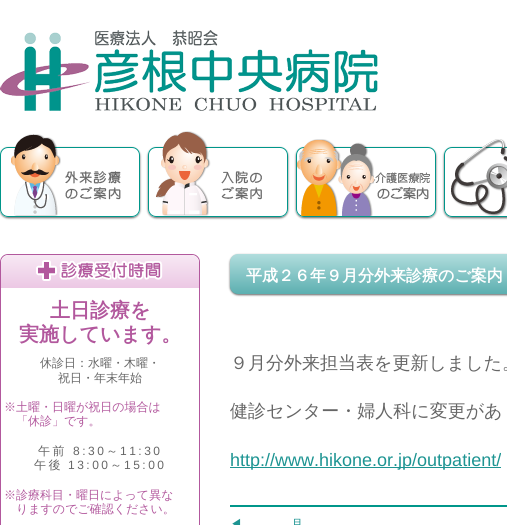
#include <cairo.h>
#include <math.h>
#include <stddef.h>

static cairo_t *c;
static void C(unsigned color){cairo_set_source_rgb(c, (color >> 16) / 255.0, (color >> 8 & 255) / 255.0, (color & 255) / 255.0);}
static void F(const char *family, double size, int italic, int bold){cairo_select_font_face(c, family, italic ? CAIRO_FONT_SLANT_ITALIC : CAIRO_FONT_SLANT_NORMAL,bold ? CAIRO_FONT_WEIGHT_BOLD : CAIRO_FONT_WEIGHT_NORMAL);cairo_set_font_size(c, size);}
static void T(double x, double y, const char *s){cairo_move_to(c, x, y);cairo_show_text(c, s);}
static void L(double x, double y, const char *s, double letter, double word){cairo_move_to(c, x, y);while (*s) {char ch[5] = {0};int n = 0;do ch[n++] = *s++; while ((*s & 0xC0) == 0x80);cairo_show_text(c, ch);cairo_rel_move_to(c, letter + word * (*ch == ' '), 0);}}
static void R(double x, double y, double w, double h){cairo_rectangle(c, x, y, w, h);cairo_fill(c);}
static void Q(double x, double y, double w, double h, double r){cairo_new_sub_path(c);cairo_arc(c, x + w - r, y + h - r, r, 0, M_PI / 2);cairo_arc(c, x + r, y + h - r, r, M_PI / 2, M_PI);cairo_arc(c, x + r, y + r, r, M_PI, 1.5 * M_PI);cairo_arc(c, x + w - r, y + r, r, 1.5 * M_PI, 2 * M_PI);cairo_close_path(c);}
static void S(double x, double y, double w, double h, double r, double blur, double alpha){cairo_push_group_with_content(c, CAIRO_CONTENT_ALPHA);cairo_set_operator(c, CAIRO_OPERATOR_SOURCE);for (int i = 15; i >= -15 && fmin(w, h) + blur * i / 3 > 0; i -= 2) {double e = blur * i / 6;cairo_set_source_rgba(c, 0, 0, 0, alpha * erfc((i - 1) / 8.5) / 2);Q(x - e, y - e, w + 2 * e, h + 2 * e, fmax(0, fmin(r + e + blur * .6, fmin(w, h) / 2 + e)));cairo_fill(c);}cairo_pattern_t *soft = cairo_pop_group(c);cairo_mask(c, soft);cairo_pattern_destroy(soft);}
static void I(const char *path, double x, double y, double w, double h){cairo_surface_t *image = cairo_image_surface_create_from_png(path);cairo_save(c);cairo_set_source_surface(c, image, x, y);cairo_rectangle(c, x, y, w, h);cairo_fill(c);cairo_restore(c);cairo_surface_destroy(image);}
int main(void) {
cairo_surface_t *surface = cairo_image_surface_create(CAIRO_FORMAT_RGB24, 507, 525);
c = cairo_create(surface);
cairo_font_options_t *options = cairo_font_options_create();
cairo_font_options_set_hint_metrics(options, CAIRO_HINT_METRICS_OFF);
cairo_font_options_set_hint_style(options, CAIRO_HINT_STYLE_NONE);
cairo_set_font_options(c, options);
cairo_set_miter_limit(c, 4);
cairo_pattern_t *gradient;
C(0xffffff);
cairo_paint(c);
I("1.png",0,30,378,81);
cairo_save(c);
cairo_set_fill_rule(c,CAIRO_FILL_RULE_EVEN_ODD);
cairo_new_path(c);
cairo_move_to(c,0,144);
cairo_line_to(c,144,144);
cairo_line_to(c,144,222);
cairo_line_to(c,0,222);
cairo_close_path(c);
cairo_move_to(c,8,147);
cairo_line_to(c,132,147);
cairo_curve_to(c,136.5,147,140,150.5,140,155);
cairo_line_to(c,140,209);
cairo_curve_to(c,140,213.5,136.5,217,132,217);
cairo_line_to(c,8,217);
cairo_curve_to(c,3.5,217,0,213.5,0,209);
cairo_line_to(c,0,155);
cairo_curve_to(c,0,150.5,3.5,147,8,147);
cairo_close_path(c);
cairo_clip(c);
C(0x666666);
S(0,148,140,70,8,1,1);
cairo_restore(c);
Q(.5,147.5,139,69,7.5);
C(0x00968a);
cairo_set_line_width(c,1);
cairo_stroke(c);
I("2.png",11,134,110,82);
cairo_save(c);
cairo_set_fill_rule(c,CAIRO_FILL_RULE_EVEN_ODD);
cairo_new_path(c);
cairo_move_to(c,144,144);
cairo_line_to(c,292,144);
cairo_line_to(c,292,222);
cairo_line_to(c,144,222);
cairo_close_path(c);
cairo_move_to(c,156,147);
cairo_line_to(c,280,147);
cairo_curve_to(c,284.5,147,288,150.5,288,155);
cairo_line_to(c,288,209);
cairo_curve_to(c,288,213.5,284.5,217,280,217);
cairo_line_to(c,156,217);
cairo_curve_to(c,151.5,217,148,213.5,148,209);
cairo_line_to(c,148,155);
cairo_curve_to(c,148,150.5,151.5,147,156,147);
cairo_close_path(c);
cairo_clip(c);
C(0x666666);
S(148,148,140,70,8,1,1);
cairo_restore(c);
Q(148.5,147.5,139,69,7.5);
cairo_stroke(c);
I("3.png",156,131,106,85);
cairo_save(c);
cairo_set_fill_rule(c,CAIRO_FILL_RULE_EVEN_ODD);
cairo_new_path(c);
cairo_move_to(c,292,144);
cairo_line_to(c,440,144);
cairo_line_to(c,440,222);
cairo_line_to(c,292,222);
cairo_close_path(c);
cairo_move_to(c,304,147);
cairo_line_to(c,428,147);
cairo_curve_to(c,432.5,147,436,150.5,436,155);
cairo_line_to(c,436,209);
cairo_curve_to(c,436,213.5,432.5,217,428,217);
cairo_line_to(c,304,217);
cairo_curve_to(c,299.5,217,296,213.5,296,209);
cairo_line_to(c,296,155);
cairo_curve_to(c,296,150.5,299.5,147,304,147);
cairo_close_path(c);
cairo_clip(c);
C(0x666666);
S(296,148,140,70,8,1,1);
cairo_restore(c);
Q(296.5,147.5,139,69,7.5);
cairo_stroke(c);
I("4.png",297,139,133,77);
cairo_save(c);
cairo_set_fill_rule(c,CAIRO_FILL_RULE_EVEN_ODD);
cairo_new_path(c);
cairo_move_to(c,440,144);
cairo_line_to(c,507,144);
cairo_line_to(c,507,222);
cairo_line_to(c,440,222);
cairo_close_path(c);
cairo_move_to(c,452,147);
cairo_line_to(c,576,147);
cairo_curve_to(c,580.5,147,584,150.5,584,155);
cairo_line_to(c,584,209);
cairo_curve_to(c,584,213.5,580.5,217,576,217);
cairo_line_to(c,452,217);
cairo_curve_to(c,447.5,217,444,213.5,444,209);
cairo_line_to(c,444,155);
cairo_curve_to(c,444,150.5,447.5,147,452,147);
cairo_close_path(c);
cairo_clip(c);
C(0x666666);
S(444,148,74,70,8,1,1);
cairo_restore(c);
Q(444.5,147.5,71,69,7.5);
cairo_stroke(c);
I("5.png",451,139,56,77);
Q(.5,254.5,199,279,7.5);
C(0xb2589d);
cairo_stroke(c);
gradient = cairo_pattern_create_linear(100,255,100,288);
cairo_pattern_add_color_stop_rgba(gradient,0,0.969,0.91,0.957,1);
cairo_pattern_add_color_stop_rgba(gradient,1,0.925,0.784,0.894,1);
cairo_set_source(c,gradient);
cairo_pattern_destroy(gradient);
cairo_new_path(c);
cairo_move_to(c,9,255);
cairo_line_to(c,191,255);
cairo_curve_to(c,195.5,255,199,258.5,199,263);
cairo_line_to(c,199,288);
cairo_line_to(c,1,288);
cairo_line_to(c,1,263);
cairo_curve_to(c,1,258.5,4.5,255,9,255);
cairo_close_path(c);
cairo_fill(c);
I("6.png",36,260,127,21);
F("WenQuanYi Zen Hei",20,0,1);
C(0xb2589d);
T(50,317,"土日診療を");
T(19,341,"実施しています。");
F("WenQuanYi Zen Hei Medium",12,0,0);
C(0x666666);
T(40,367,"休診日：水曜・木曜・");
T(58,382,"祝日・年末年始");
C(0xb2589d);
T(4,411,"※土曜・日曜が祝日の場合は");
T(16,425,"「休診」です。");
C(0x666666);
L(38,455,"午前",2.5,0);
F("Liberation Sans",12,0,0);
L(73,455,"8:30",2.5,0);
F("WenQuanYi Zen Hei Medium",12,0,0);
L(106,455,"～",2.5,0);
F("Liberation Sans",12,0,0);
L(120,455,"11:30",2.5,0);
F("WenQuanYi Zen Hei Medium",12,0,0);
L(34,469,"午後",2.5,0);
F("Liberation Sans",12,0,0);
L(68,469,"13:00",2.5,0);
F("WenQuanYi Zen Hei Medium",12,0,0);
L(110,469,"～",2.5,0);
F("Liberation Sans",12,0,0);
L(124,469,"15:00",2.5,0);
F("WenQuanYi Zen Hei Medium",12,0,0);
C(0xb2589d);
T(4,499,"※診療科目・曜日によって異な");
T(16,513,"りますのでご確認ください。");
C(0x666666);
S(230,255,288,40,8,1,1);
gradient = cairo_pattern_create_linear(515,254,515,294);
cairo_pattern_add_color_stop_rgba(gradient,0,0.694,0.867,0.867,1);
cairo_pattern_add_color_stop_rgba(gradient,1,0.361,0.686,0.69,1);
cairo_set_source(c,gradient);
cairo_pattern_destroy(gradient);
Q(230,254,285,40,8);
cairo_fill(c);
F("WenQuanYi Zen Hei",16,0,1);
C(0xffffff);
T(246,281,"平成２６年９月分外来診療のご案内");
F("WenQuanYi Zen Hei Medium",18,0,0);
C(0x666666);
T(230,369,"９月分外来担当表を更新しました。");
T(230,417,"健診センター・婦人科に変更があ");
C(0x1d9492);
R(230,467,271,1);
F("Liberation Sans",18,0,0);
T(230,466,"http://www.hikone.or.jp/outpatient/");
C(0x00968a);
R(230,505,277,2);
F("WenQuanYi Zen Hei Medium",12,0,0);
C(0x1d9492);
T(230,528,"◀");
T(291,528,"月");
cairo_surface_write_to_png(surface, "o.png");
cairo_font_options_destroy(options);
cairo_destroy(c);
cairo_surface_destroy(surface);
return 0;
}
